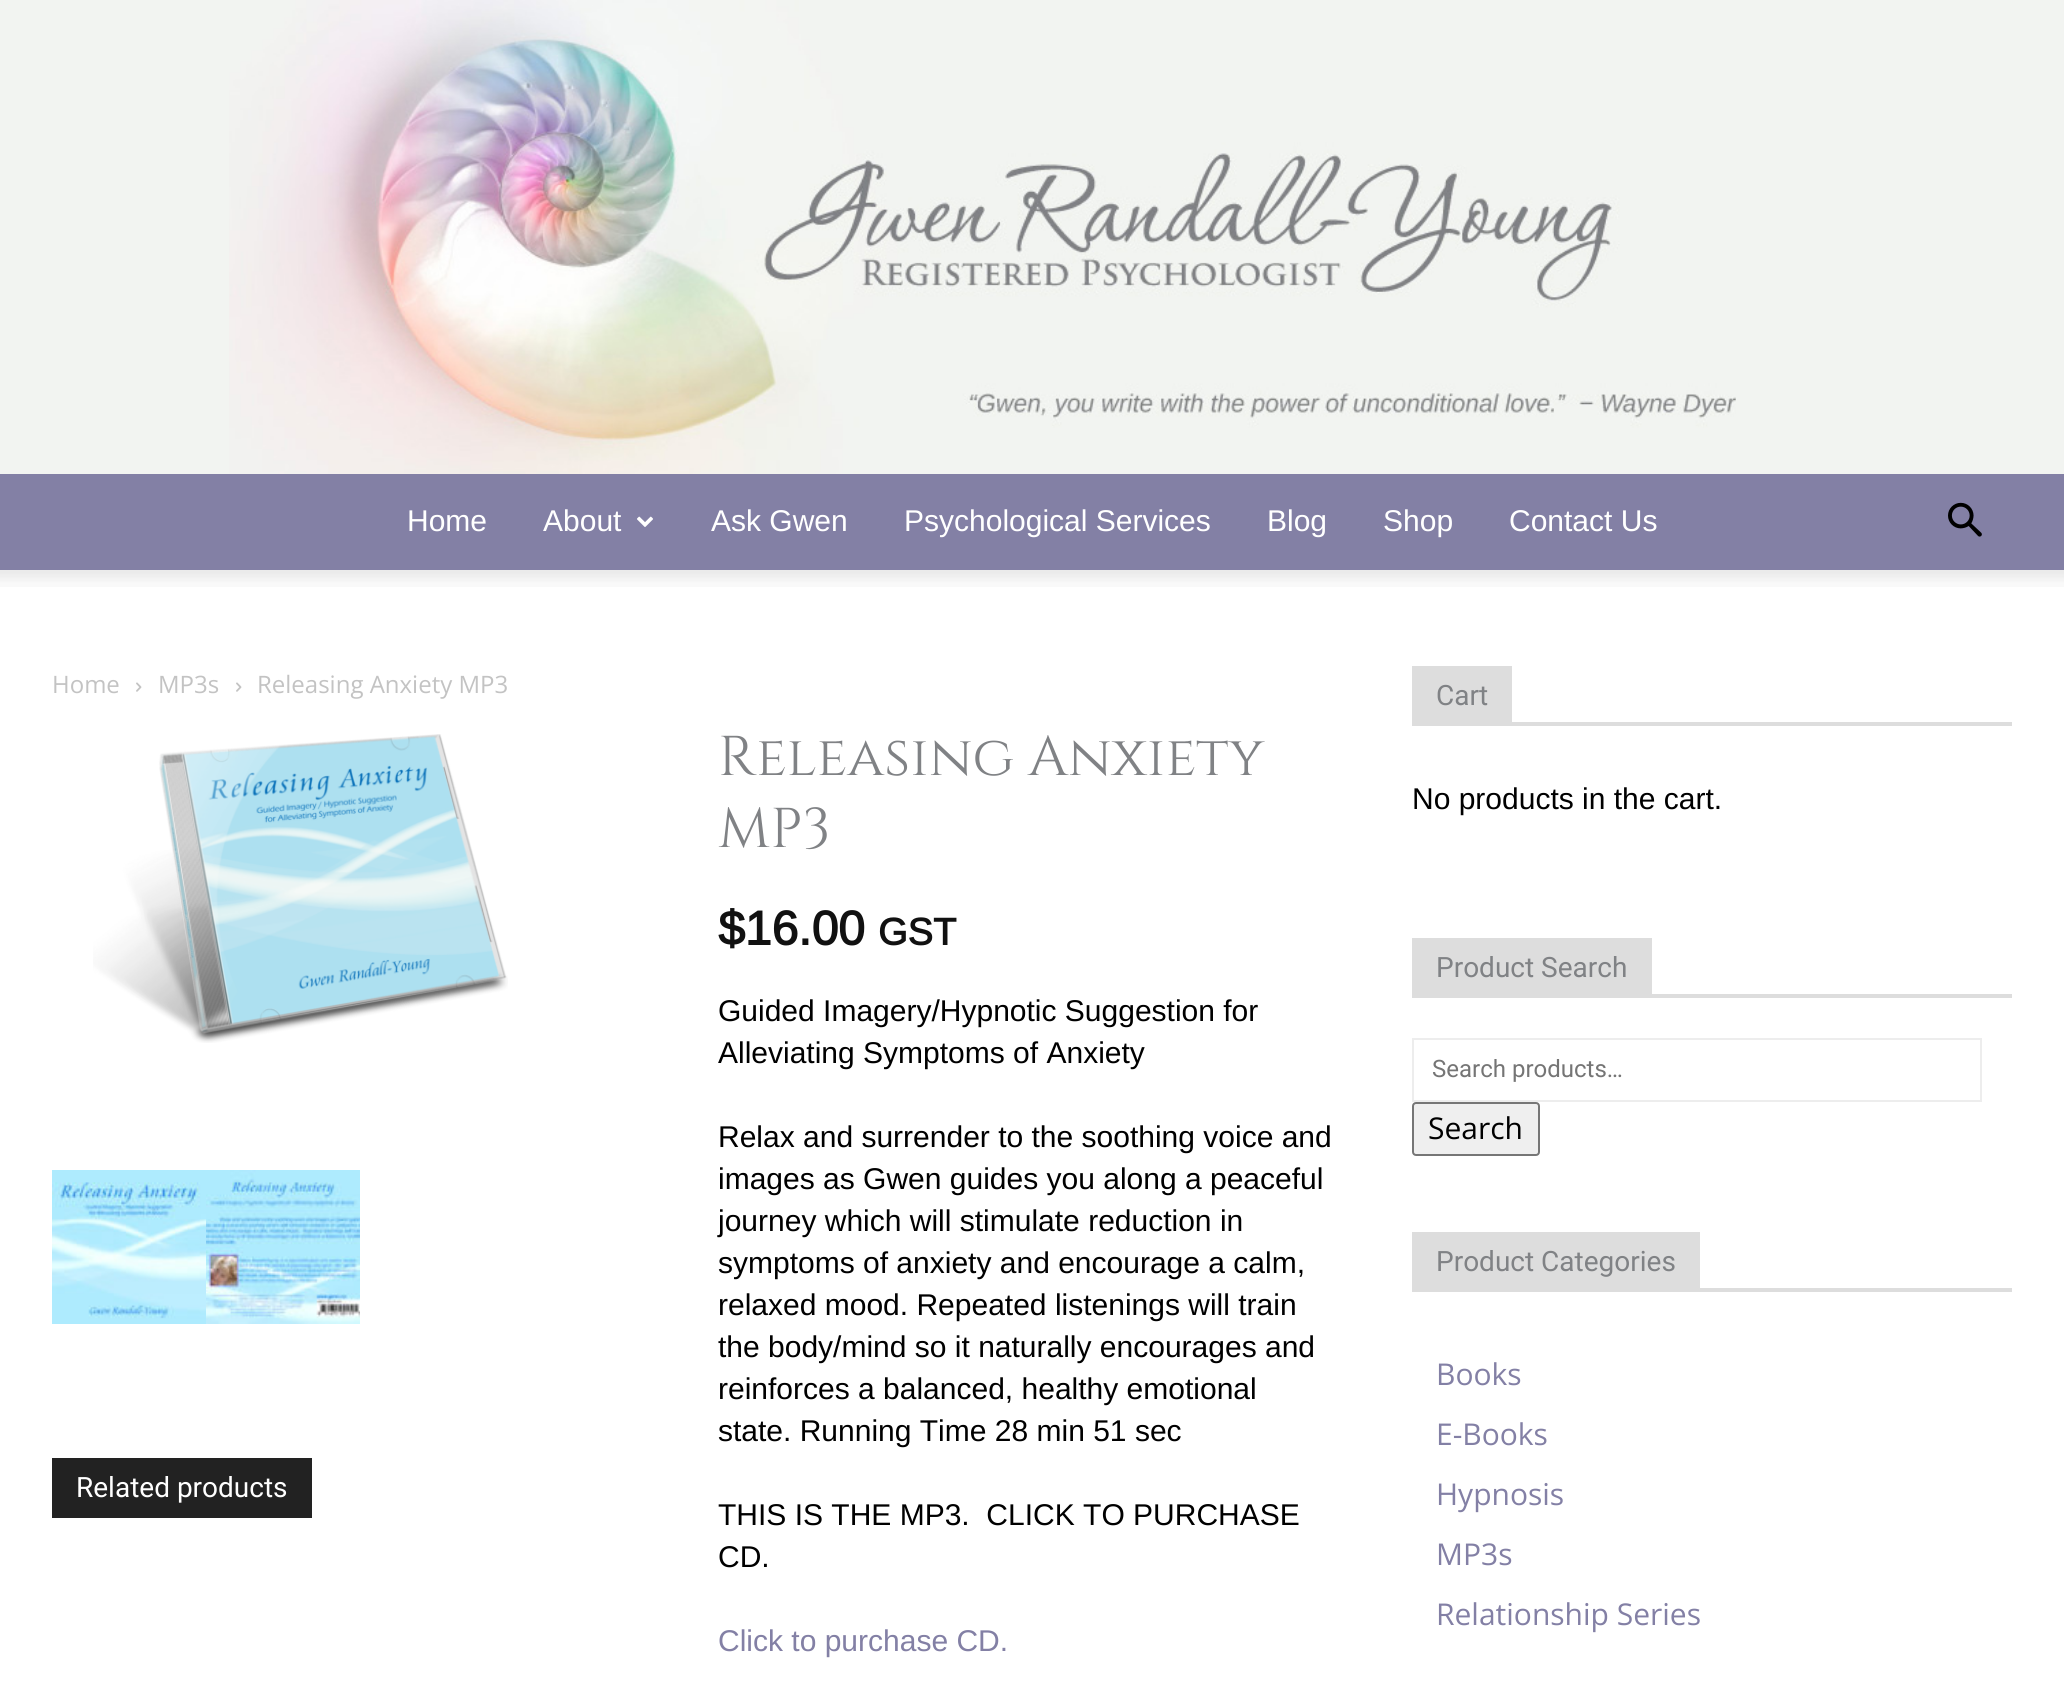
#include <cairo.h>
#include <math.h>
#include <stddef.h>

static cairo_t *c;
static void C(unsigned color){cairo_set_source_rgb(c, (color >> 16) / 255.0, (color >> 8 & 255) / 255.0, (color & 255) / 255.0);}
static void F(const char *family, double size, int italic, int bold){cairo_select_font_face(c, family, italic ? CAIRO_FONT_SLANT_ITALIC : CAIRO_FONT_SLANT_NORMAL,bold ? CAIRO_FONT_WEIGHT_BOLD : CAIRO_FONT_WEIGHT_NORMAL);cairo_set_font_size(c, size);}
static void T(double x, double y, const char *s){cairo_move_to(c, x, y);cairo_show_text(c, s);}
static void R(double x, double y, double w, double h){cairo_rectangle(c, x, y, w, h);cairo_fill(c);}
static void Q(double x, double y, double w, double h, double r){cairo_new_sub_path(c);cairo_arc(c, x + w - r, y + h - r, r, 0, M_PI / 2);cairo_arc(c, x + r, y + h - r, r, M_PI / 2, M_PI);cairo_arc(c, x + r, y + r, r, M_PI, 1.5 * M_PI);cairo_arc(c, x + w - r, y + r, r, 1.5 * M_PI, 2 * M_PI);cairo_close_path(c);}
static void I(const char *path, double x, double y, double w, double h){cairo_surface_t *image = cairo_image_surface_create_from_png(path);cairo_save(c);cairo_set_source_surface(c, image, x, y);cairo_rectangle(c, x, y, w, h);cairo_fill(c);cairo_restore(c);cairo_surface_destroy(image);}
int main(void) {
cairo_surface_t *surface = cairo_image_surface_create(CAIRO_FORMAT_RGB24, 2064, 1686);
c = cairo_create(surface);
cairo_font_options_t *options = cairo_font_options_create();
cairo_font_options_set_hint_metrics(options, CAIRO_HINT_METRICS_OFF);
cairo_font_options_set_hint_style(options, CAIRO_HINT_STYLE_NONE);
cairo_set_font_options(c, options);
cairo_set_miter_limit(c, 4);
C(0xffffff);
cairo_paint(c);
C(0xf2f4f1);
R(0,0,2064,474);
I("1.png",229,0,1507,474);
C(0x8380a5);
R(0,474,2064,96);
F("Arimo",30,0,0);
C(0xffffff);
T(407,531,"Home");
T(543,531,"About");
I("2.png",637,516,16,11);
T(711,531,"Ask Gwen");
T(904,531,"Psychological Services");
T(1267,531,"Blog");
T(1383,531,"Shop");
T(1509,531,"Contact Us");
I("3.png",1948,502,34,35);
I("4.png",0,570,2064,17);
F("Open Sans",24,0,0);
C(0xc3c3c3);
T(52,693,"Home");
I("5.png",136,682,6,10);
T(158,693,"MP3s");
I("5.png",236,682,6,10);
T(257,693,"Releasing Anxiety MP3");
I("6.png",93,734,415,309);
I("7.png",52,1170,154,154);
I("8.png",206,1170,154,154);
F("Cinzel",56,0,0);
C(0x808285);
T(718,775,"Releasing Anxiety");
T(718,847,"MP3");
F("Arimo",48,0,1);
C(0x111111);
T(718,945,"$16.00");
F("Arimo",38,0,1);
T(878,945,"GST");
F("Arimo",30,0,0);
C(0x000000);
T(718,1021,"Guided Imagery/Hypnotic Suggestion for");
T(718,1063,"Alleviating Symptoms of Anxiety");
T(718,1147,"Relax and surrender to the soothing voice and");
T(718,1189,"images as Gwen guides you along a peaceful");
T(718,1231,"journey which will stimulate reduction in");
T(718,1273,"symptoms of anxiety and encourage a calm,");
T(718,1315,"relaxed mood. Repeated listenings will train");
T(718,1357,"the body/mind so it naturally encourages and");
T(718,1399,"reinforces a balanced, healthy emotional");
T(718,1441,"state. Running Time 28 min 51 sec");
T(718,1525,"THIS IS THE MP3.  CLICK TO PURCHASE");
T(718,1567,"CD.");
C(0x8380a5);
T(718,1651,"Click to purchase CD.");
C(0x222222);
R(52,1458,260,60);
F("Roboto",28,0,0);
C(0xffffff);
T(76,1497,"Related products");
C(0xdddddd);
R(1412,722,600,4);
R(1412,666,100,56);
C(0x808285);
T(1436,705,"Cart");
F("Arimo",30,0,0);
C(0x000000);
T(1412,809,"No products in the cart.");
C(0xdddddd);
R(1412,994,600,4);
R(1412,938,240,56);
F("Roboto",28,0,0);
C(0x808285);
T(1436,977,"Product Search");
cairo_rectangle(c,1413,1039,568,62);
C(0xededed);
cairo_stroke(c);
F("Roboto",24,0,0);
C(0x757575);
T(1432,1077,"Search products…");
C(0xefefef);
Q(1413,1103,126,52,3);
cairo_fill_preserve(c);
C(0x767676);
cairo_stroke(c);
F("Open Sans",30,0,0);
C(0x000000);
T(1428,1139,"Search");
C(0xdddddd);
R(1412,1288,600,4);
R(1412,1232,288,56);
F("Roboto",28,0,0);
C(0x808285);
T(1436,1271,"Product Categories");
F("Open Sans",30,0,0);
C(0x8380a5);
T(1436,1385,"Books");
T(1436,1445,"E-Books");
T(1436,1505,"Hypnosis");
T(1436,1565,"MP3s");
T(1436,1625,"Relationship Series");
cairo_surface_write_to_png(surface, "o.png");
cairo_font_options_destroy(options);
cairo_destroy(c);
cairo_surface_destroy(surface);
return 0;
}
